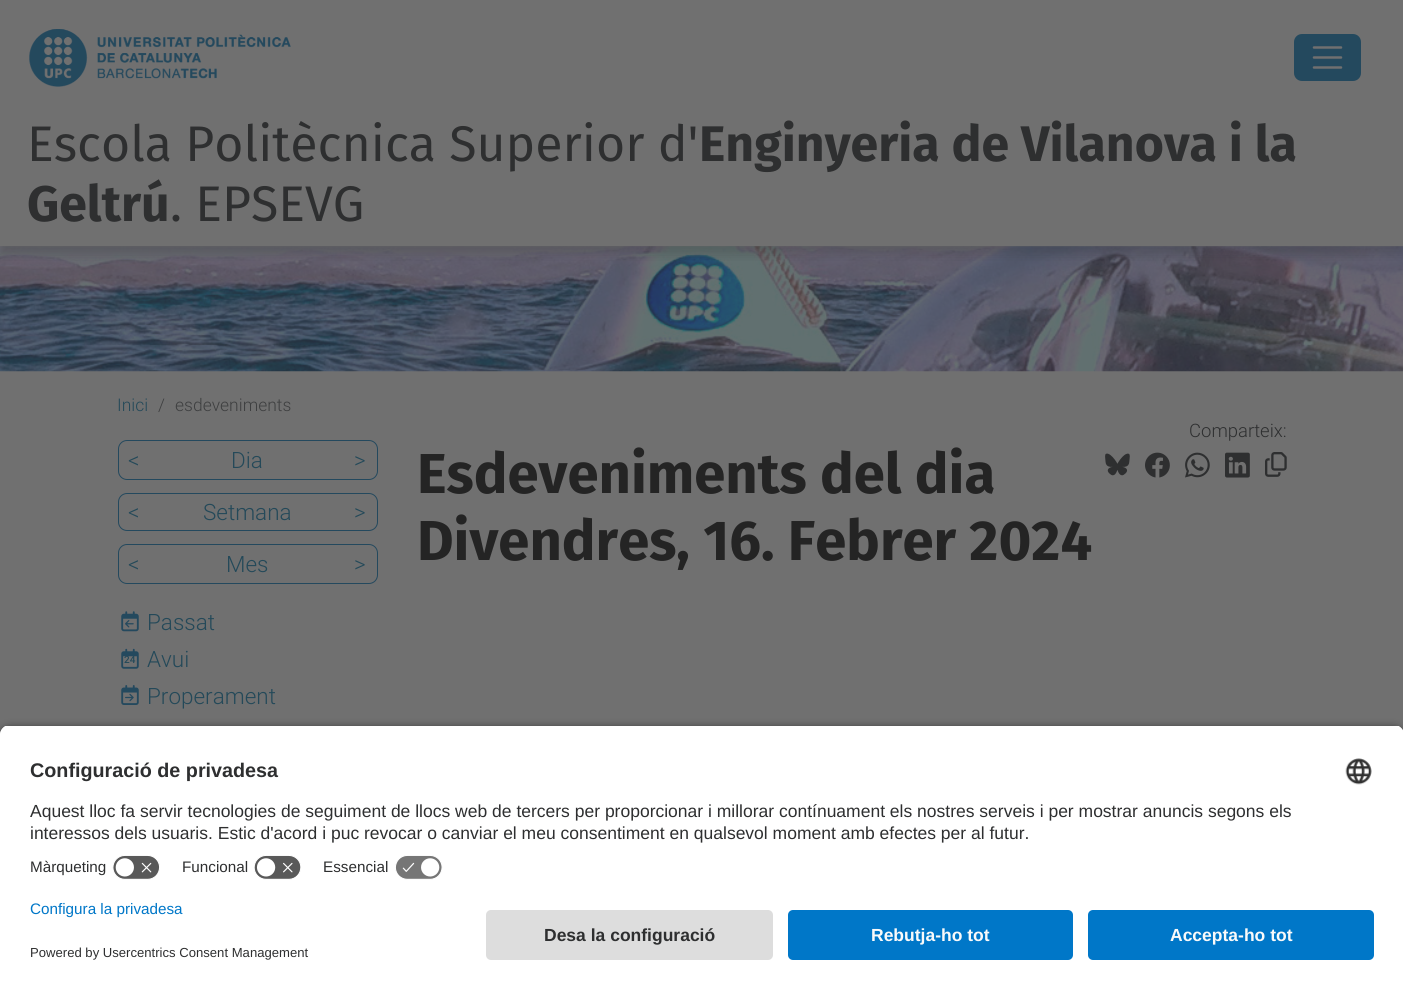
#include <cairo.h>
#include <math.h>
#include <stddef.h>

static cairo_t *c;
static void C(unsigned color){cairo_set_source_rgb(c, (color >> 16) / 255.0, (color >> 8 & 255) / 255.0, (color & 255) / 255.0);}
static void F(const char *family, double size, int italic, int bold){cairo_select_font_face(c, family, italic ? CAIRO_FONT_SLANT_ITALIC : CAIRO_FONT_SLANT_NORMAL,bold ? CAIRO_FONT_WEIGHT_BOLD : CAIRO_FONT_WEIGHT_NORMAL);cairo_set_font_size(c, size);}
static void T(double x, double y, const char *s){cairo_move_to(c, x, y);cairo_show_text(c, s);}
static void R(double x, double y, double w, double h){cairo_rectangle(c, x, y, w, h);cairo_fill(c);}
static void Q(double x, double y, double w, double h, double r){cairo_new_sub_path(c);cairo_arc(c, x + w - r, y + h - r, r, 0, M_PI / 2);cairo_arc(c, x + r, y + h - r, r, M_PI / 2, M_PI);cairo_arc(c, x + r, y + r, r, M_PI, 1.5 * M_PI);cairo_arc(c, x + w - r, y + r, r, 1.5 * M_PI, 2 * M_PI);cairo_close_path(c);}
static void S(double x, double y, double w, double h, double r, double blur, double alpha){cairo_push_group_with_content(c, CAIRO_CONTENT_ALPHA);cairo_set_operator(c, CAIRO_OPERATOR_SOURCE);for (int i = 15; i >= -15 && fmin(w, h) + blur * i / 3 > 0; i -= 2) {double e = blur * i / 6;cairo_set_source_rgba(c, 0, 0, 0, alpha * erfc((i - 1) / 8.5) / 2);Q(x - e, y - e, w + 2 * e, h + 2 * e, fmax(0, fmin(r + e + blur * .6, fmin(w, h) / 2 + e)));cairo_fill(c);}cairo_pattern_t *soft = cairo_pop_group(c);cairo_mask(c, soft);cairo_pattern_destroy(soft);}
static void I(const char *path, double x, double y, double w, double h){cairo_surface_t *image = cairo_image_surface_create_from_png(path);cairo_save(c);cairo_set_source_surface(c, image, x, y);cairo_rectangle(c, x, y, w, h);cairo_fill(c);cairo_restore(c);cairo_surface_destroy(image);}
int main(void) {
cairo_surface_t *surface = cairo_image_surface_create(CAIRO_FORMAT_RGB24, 1403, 990);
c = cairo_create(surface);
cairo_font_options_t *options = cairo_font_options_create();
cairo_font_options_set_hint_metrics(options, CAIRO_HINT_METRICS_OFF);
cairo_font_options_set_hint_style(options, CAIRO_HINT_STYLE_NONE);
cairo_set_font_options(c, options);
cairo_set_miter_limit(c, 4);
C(0x707070);
cairo_paint(c);
I("1.png",29,29,262,58);
C(0x24495e);
Q(1294,34,67,47,8);
cairo_fill(c);
cairo_new_path(c);
cairo_move_to(c,1314,47.5);
cairo_line_to(c,1341,47.5);
cairo_move_to(c,1314,57.5);
cairo_line_to(c,1341,57.5);
cairo_move_to(c,1314,67.5);
cairo_line_to(c,1341,67.5);
C(0x707070);
cairo_set_line_width(c,2.5);
cairo_set_line_cap(c,CAIRO_LINE_CAP_ROUND);
cairo_stroke(c);
I("2.png",0,246,1403,126);
cairo_save(c);
cairo_rectangle(c,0,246,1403,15);
cairo_clip(c);
C(0x242424);
S(0,124,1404,131,0,5,.2);
cairo_restore(c);
F("Fira Sans",50,0,0);
C(0x2e2f30);
T(27,161,"Escola Politècnica Superior d'");
F("Fira Sans",50,0,1);
T(699,161,"Enginyeria de Vilanova i la");
T(27,221,"Geltrú");
F("Fira Sans",50,0,0);
T(170,221,". EPSEVG");
F("Roboto Light",17.5,0,0);
C(0x244959);
T(117,411,"Inici");
C(0x3e3f40);
T(158,411,"/");
T(175,411,"esdeveniments");
Q(118.5,440.5,259,39,8.5);
C(0x24495e);
cairo_set_line_width(c,1);
cairo_set_line_cap(c,CAIRO_LINE_CAP_BUTT);
cairo_stroke(c);
F("Roboto Light",22.5,0,0);
C(0x244959);
T(128,468,"<");
T(231,468,"Dia");
T(354,468,">");
Q(118.5,493.5,259,37,8.5);
C(0x24495e);
cairo_stroke(c);
C(0x244959);
T(128,520,"<");
T(203,520,"Setmana");
T(354,520,">");
Q(118.5,544.5,259,39,8.5);
C(0x24495e);
cairo_stroke(c);
C(0x244959);
T(128,572,"<");
T(226,572,"Mes");
T(354,572,">");
I("3.png",121,611,18,21);
I("4.png",125,620,9,8);
T(147,630,"Passat");
F("Roboto Medium",10,0,0);
T(124,663,"24");
I("5.png",121,648,18,21);
F("Roboto Light",22.5,0,0);
T(147,667,"Avui");
I("6.png",121,685,18,20);
I("7.png",125,693,9,9);
T(147,704,"Properament");
F("Roboto Light",18.5,0,0);
C(0x2e2f30);
T(1189,437,"Comparteix:");
I("8.png",1105,453,25,23);
I("9.png",1145,452,25,26);
I("10.png",1185,452,25,26);
I("11.png",1225,452,25,26);
I("12.png",1265,452,22,25);
F("Fira Sans",56.25,0,1);
C(0x242424);
T(417,493,"Esdeveniments del dia");
T(417,560,"Divendres, 16. Febrer 2024");
C(0x000000);
S(0,729,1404,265,10,4.5,.8);
cairo_save(c);
cairo_new_path(c);
cairo_move_to(c,10,725);
cairo_line_to(c,1394,725);
cairo_curve_to(c,1399.5,725,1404,729.5,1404,735);
cairo_line_to(c,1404,900);
cairo_line_to(c,0,900);
cairo_line_to(c,0,735);
cairo_curve_to(c,0,729.5,4.5,725,10,725);
cairo_close_path(c);
cairo_clip(c);
C(0xffffff);
R(0,726,1403,174);
R(0,726,1403,124);
cairo_restore(c);
F("Liberation Sans",19.75,0,1);
C(0x2e2f30);
T(30,777,"Configuració de privadesa");
I("13.png",1345,758,27,27);
F("Liberation Sans",17.5,0,0);
T(30,817,"Aquest lloc fa servir tecnologies de seguiment de llocs web de tercers per proporcionar i millorar contínuament els nostres serveis i per mostrar anuncis segons els");
T(30,839,"interessos dels usuaris. Estic d'acord i puc revocar o canviar el meu consentiment en qualsevol moment amb efectes per al futur.");
F("Liberation Sans",15.25,0,0);
T(30,872,"Màrqueting");
I("14.png",112,855,48,25);
T(182,872,"Funcional");
I("15.png",254,855,47,25);
T(323,872,"Essencial");
I("16.png",395,855,48,25);
C(0xffffff);
R(0,900,1403,90);
C(0x0077c8);
T(30,914,"Configura la privadesa");
F("Liberation Sans",13.1,0,0);
C(0x2e2f30);
T(30,957,"Powered by Usercentrics Consent Management");
C(0xdddddd);
Q(486,910,287,50,5);
cairo_fill(c);
F("Liberation Sans",17.5,0,1);
C(0x2e2f30);
T(544,941,"Desa la configuració");
C(0x0077c8);
Q(788,910,285,50,5);
cairo_fill(c);
C(0xfafafa);
T(871,941,"Rebutja-ho tot");
C(0x0077c8);
Q(1088,910,286,50,5);
cairo_fill(c);
C(0xfafafa);
T(1170,941,"Accepta-ho tot");
cairo_surface_write_to_png(surface, "o.png");
cairo_font_options_destroy(options);
cairo_destroy(c);
cairo_surface_destroy(surface);
return 0;
}
